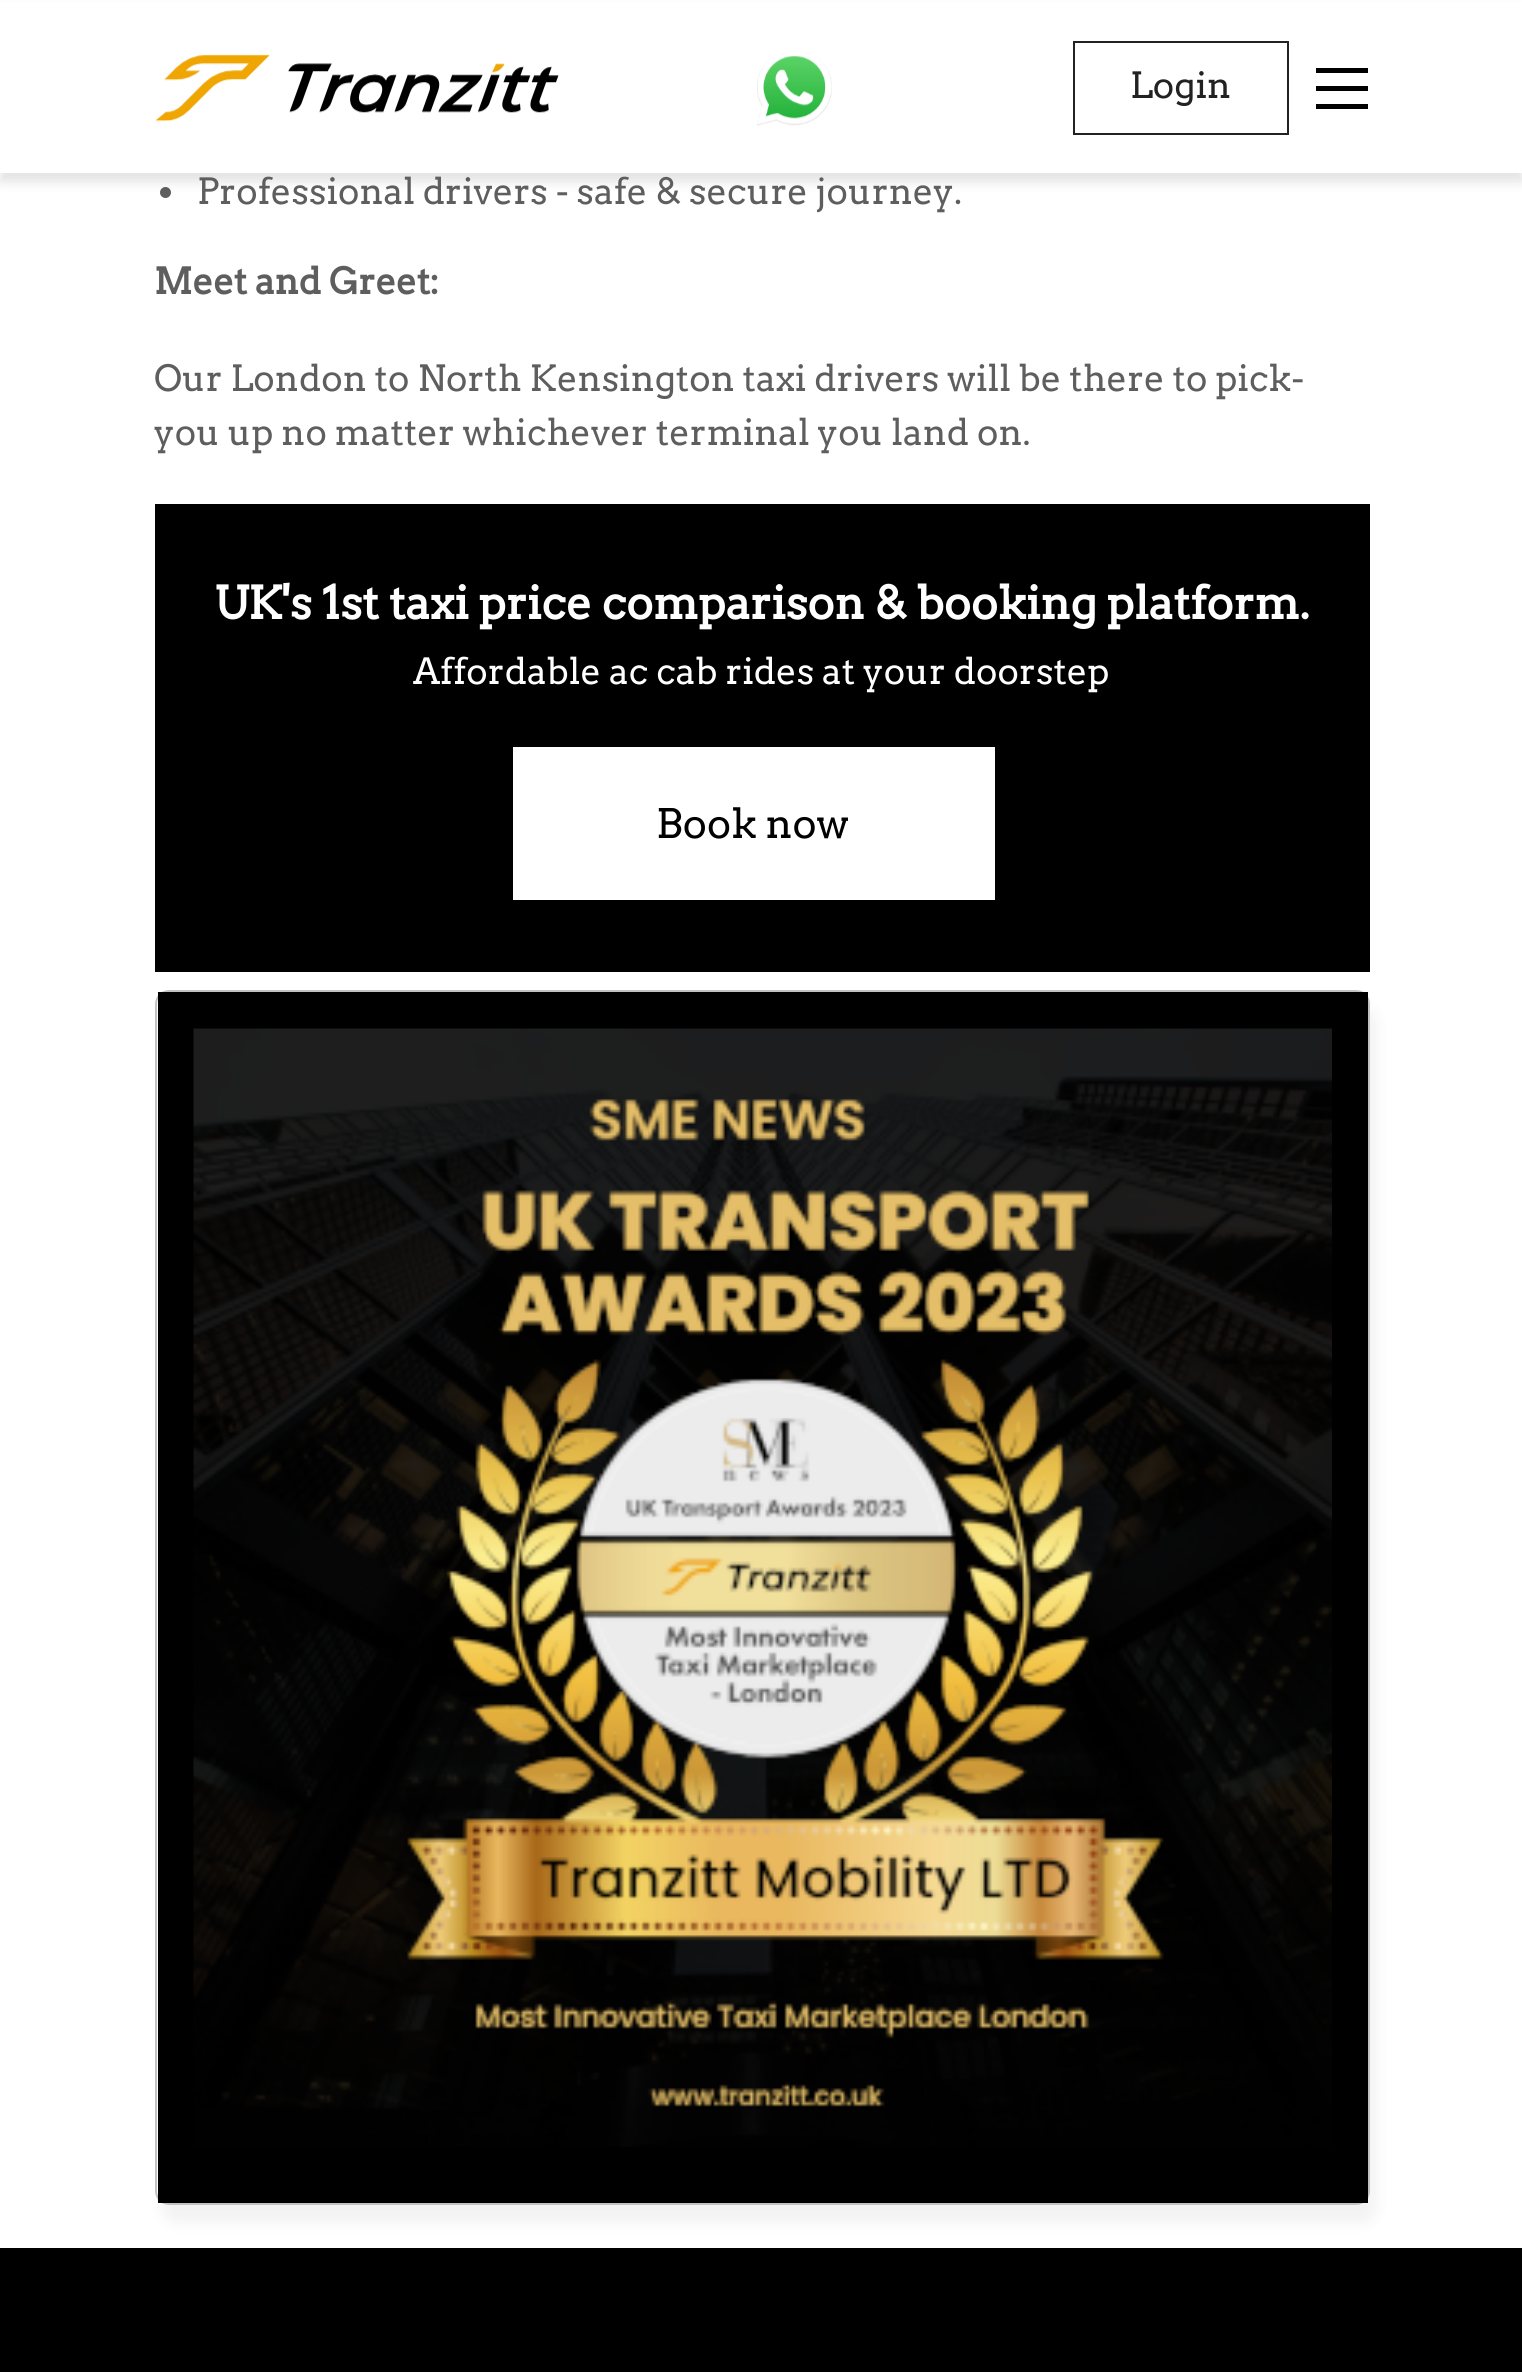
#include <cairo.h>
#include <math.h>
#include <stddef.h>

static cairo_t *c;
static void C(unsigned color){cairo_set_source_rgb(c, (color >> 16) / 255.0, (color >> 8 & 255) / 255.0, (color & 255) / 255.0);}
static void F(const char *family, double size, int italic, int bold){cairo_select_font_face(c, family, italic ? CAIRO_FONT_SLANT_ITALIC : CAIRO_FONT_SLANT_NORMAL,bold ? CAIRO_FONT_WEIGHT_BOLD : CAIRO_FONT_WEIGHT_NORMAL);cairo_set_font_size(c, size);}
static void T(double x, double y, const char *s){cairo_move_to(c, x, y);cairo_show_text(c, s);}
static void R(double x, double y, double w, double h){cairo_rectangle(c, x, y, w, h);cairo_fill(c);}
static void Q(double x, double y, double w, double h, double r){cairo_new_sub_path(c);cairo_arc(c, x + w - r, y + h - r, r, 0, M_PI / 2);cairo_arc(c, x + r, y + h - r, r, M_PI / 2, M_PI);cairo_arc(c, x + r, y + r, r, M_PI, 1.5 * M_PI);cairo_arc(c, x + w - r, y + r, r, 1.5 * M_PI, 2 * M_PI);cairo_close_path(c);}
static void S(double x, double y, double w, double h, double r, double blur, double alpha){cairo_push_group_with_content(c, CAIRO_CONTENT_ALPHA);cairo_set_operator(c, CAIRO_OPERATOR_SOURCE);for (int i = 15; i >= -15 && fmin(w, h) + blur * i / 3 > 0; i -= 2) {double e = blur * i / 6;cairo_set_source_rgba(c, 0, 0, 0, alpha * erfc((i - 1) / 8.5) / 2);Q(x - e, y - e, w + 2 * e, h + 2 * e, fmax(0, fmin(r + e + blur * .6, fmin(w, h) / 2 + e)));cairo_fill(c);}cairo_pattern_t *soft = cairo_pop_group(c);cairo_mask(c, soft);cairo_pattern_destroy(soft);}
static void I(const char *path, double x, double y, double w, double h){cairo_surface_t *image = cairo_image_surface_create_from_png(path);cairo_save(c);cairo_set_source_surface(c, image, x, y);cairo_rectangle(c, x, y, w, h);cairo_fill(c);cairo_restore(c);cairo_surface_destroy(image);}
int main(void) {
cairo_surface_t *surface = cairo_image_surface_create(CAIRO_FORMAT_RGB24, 1522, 2372);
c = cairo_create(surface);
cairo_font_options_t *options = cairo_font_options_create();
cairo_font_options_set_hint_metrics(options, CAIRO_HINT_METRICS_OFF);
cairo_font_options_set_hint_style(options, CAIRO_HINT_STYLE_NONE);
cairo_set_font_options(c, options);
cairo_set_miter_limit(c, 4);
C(0xffffff);
cairo_paint(c);
C(0x5e5e5e);
cairo_arc(c,165.5,192.5,5.5,0,2 * M_PI);
cairo_fill(c);
C(0x000000);
S(0,9,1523,173,0,5.5,.11);
C(0xffffff);
R(0,2,1522,171);
I("1.png",155,54,404,68);
I("2.png",756,56,76,70);
cairo_rectangle(c,1074,42,214,92);
C(0x222222);
cairo_stroke(c);
F("Arvo",36,0,0);
T(1130,98,"Login");
C(0x000000);
R(1316,68,52,5);
R(1316,86,52,5);
R(1316,104,52,5);
C(0x5e5e5e);
T(197,204,"Professional drivers - safe & secure journey.");
F("Arvo",36,0,1);
T(154,294,"Meet and Greet:");
F("Arvo",36,0,0);
T(154,391,"Our London to North Kensington taxi drivers will be there to pick-");
T(154,445,"you up no matter whichever terminal you land on.");
C(0x000000);
R(155,504,1215,468);
F("Arvo",45,0,1);
C(0xffffff);
T(214,619,"UK's 1st taxi price comparison & booking platform.");
F("Arvo",36,0,0);
T(413,684,"Affordable ac cab rides at your doorstep");
R(513,747,482,153);
F("Arvo",40.5,0,0);
C(0x000000);
T(656,838,"Book now");
C(0x000000);
S(162,1008,1215,1215,14,7,.05);
Q(156,991,1213,1213,13);
C(0xc2c2c2);
cairo_stroke(c);
C(0x000000);
R(158,992,1210,1211);
I("3.png",193,1028,1139,1119);
R(0,2248,1522,124);
cairo_surface_write_to_png(surface, "o.png");
cairo_font_options_destroy(options);
cairo_destroy(c);
cairo_surface_destroy(surface);
return 0;
}
